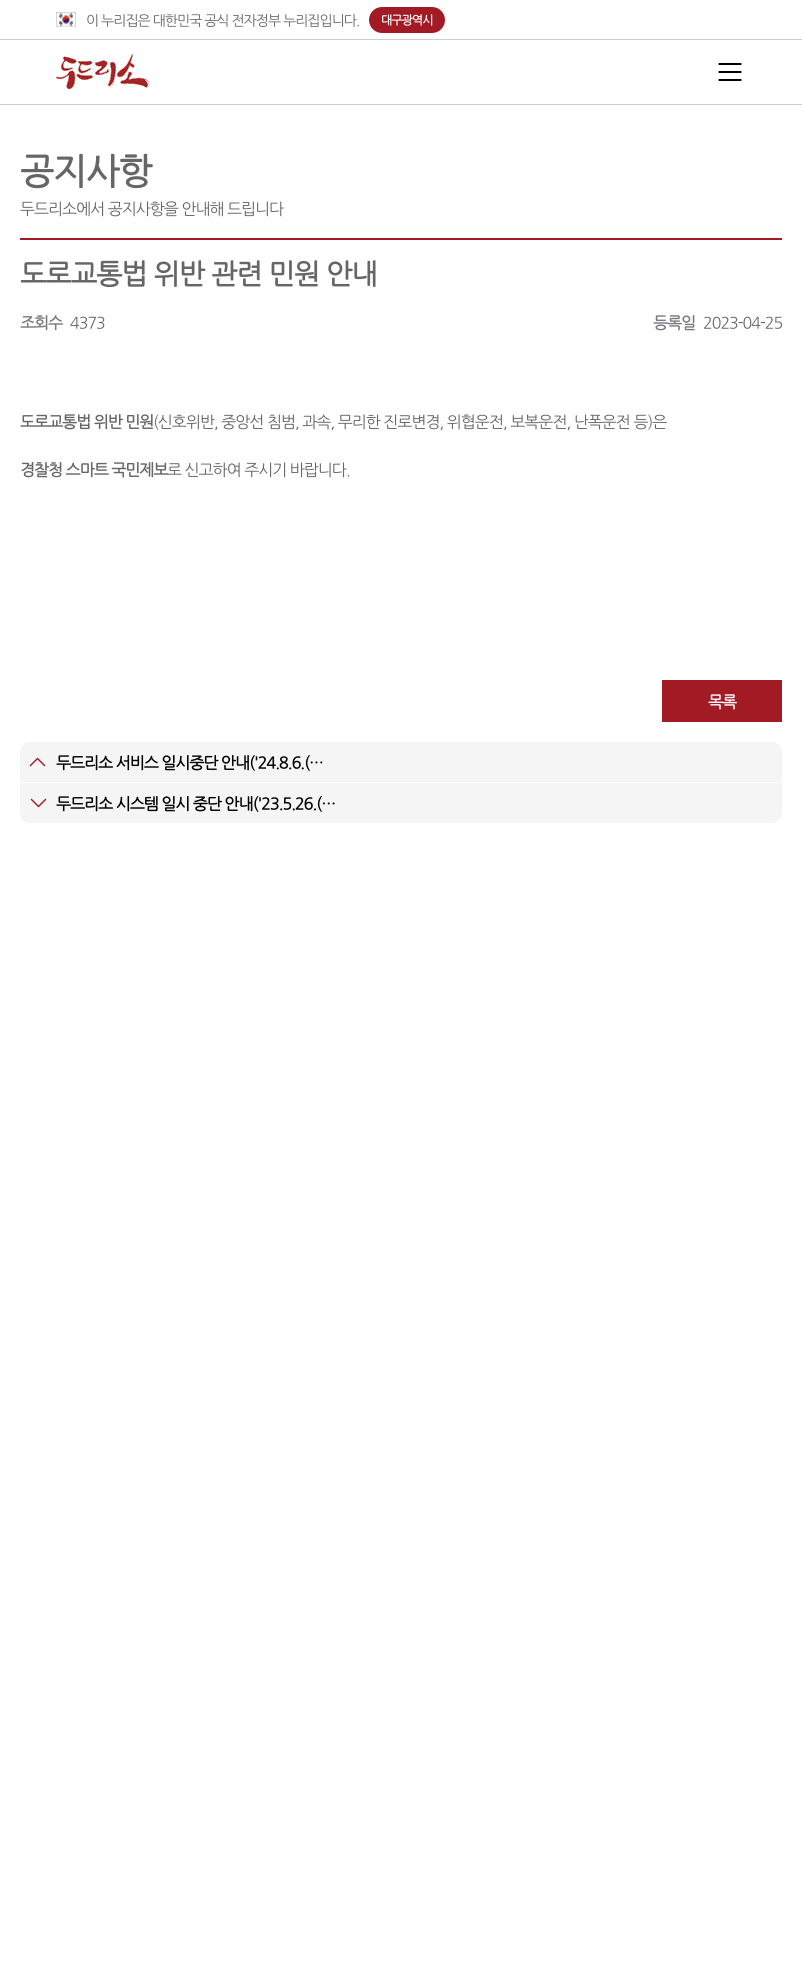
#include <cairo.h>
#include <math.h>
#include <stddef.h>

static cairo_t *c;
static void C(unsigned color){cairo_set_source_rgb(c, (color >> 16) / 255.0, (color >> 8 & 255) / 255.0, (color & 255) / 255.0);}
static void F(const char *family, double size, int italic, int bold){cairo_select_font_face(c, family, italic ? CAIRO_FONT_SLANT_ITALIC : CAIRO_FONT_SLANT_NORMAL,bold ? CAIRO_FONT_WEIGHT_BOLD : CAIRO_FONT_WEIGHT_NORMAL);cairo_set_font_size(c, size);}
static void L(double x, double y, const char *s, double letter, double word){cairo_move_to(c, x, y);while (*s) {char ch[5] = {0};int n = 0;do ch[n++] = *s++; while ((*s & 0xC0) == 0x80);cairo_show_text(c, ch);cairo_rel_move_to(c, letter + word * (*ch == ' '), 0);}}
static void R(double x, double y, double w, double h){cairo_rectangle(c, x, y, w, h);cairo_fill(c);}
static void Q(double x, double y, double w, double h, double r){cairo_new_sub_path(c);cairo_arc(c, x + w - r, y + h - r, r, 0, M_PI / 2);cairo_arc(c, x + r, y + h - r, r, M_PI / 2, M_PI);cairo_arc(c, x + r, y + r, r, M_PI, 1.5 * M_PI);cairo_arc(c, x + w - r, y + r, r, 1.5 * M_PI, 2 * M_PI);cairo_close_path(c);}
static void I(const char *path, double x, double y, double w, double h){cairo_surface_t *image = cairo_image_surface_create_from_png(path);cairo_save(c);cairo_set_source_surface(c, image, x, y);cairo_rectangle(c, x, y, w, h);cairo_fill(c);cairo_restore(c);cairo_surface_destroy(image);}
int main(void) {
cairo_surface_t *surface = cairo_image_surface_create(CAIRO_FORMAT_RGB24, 802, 1963);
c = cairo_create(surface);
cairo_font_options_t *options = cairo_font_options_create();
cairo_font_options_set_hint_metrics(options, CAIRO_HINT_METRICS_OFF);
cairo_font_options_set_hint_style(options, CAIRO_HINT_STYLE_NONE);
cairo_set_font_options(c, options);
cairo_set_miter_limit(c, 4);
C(0xffffff);
cairo_paint(c);
C(0xcdcdcd);
R(0,39,802,1);
I("1.png",56,12,20,15);
F("NanumGothic",14,0,0);
C(0x666666);
L(86,25,"이 누리집은 대한민국 공식 전자정부 누리집입니다.",-1,0);
C(0xa21a24);
Q(369,7,76,26,13);
cairo_fill(c);
F("NanumGothic",12,0,1);
C(0xffffff);
L(381,24,"대구광역시",-1,0);
C(0xcdcdcd);
R(0,104,802,1);
I("2.png",56,54,93,35);
I("3.png",718,63,24,18);
F("NanumGothic",36,0,1);
C(0x666666);
L(20,183,"공지사항",-1,0);
F("NanumGothic",16,0,0);
L(20,214,"두드리소에서 공지사항을 안내해 드립니다",-1,0);
C(0xa21a24);
R(20,238,762,2);
F("NanumGothic",28,0,1);
C(0x666666);
L(20,283,"도로교통법 위반 관련 민원 안내",-1,0);
F("NanumGothic",16,0,1);
C(0x787981);
L(20,328,"조회수",-1,0);
F("NanumGothic",16,0,0);
C(0x666666);
L(70,328,"4373",-1,0);
F("NanumGothic",16,0,1);
C(0x787981);
L(653,328,"등록일",-1,0);
F("NanumGothic",16,0,0);
C(0x666666);
L(703,328,"2023-04-25",-1,0);
F("NanumGothic",16,0,1);
L(20,427,"도로교통법 위반 민원",-1,0);
F("NanumGothic",16,0,0);
L(153,427,"(신호위반, 중앙선 침범, 과속, 무리한 진로변경, 위협운전, 보복운전, 난폭운전 등)은",-1,0);
F("NanumGothic",16,0,1);
L(20,475,"경찰청 스마트 국민제보",-1,0);
F("NanumGothic",16,0,0);
L(167,475,"로 신고하여 주시기 바랍니다.",-1,0);
C(0xa21a24);
R(662,680,120,42);
F("NanumGothic",16,0,1);
C(0xffffff);
L(708,707,"목록",-1,0);
C(0xf5f5f5);
cairo_new_path(c);
cairo_move_to(c,30,742);
cairo_line_to(c,772,742);
cairo_curve_to(c,777.5,742,782,746.5,782,752);
cairo_line_to(c,782,782);
cairo_line_to(c,20,782);
cairo_line_to(c,20,752);
cairo_curve_to(c,20,746.5,24.5,742,30,742);
cairo_close_path(c);
cairo_fill(c);
I("4.png",29,757,17,10);
C(0x000000);
L(56,768,"두드리소 서비스 일시중단 안내('24.8.6.(…",-1,0);
C(0xf5f5f5);
cairo_new_path(c);
cairo_move_to(c,20,783);
cairo_line_to(c,782,783);
cairo_line_to(c,782,813);
cairo_curve_to(c,782,818.5,777.5,823,772,823);
cairo_line_to(c,30,823);
cairo_curve_to(c,24.5,823,20,818.5,20,813);
cairo_close_path(c);
cairo_fill(c);
I("5.png",30,798,17,10);
C(0x000000);
L(56,809,"두드리소 시스템 일시 중단 안내('23.5.26.(…",-1,0);
cairo_surface_write_to_png(surface, "o.png");
cairo_font_options_destroy(options);
cairo_destroy(c);
cairo_surface_destroy(surface);
return 0;
}
